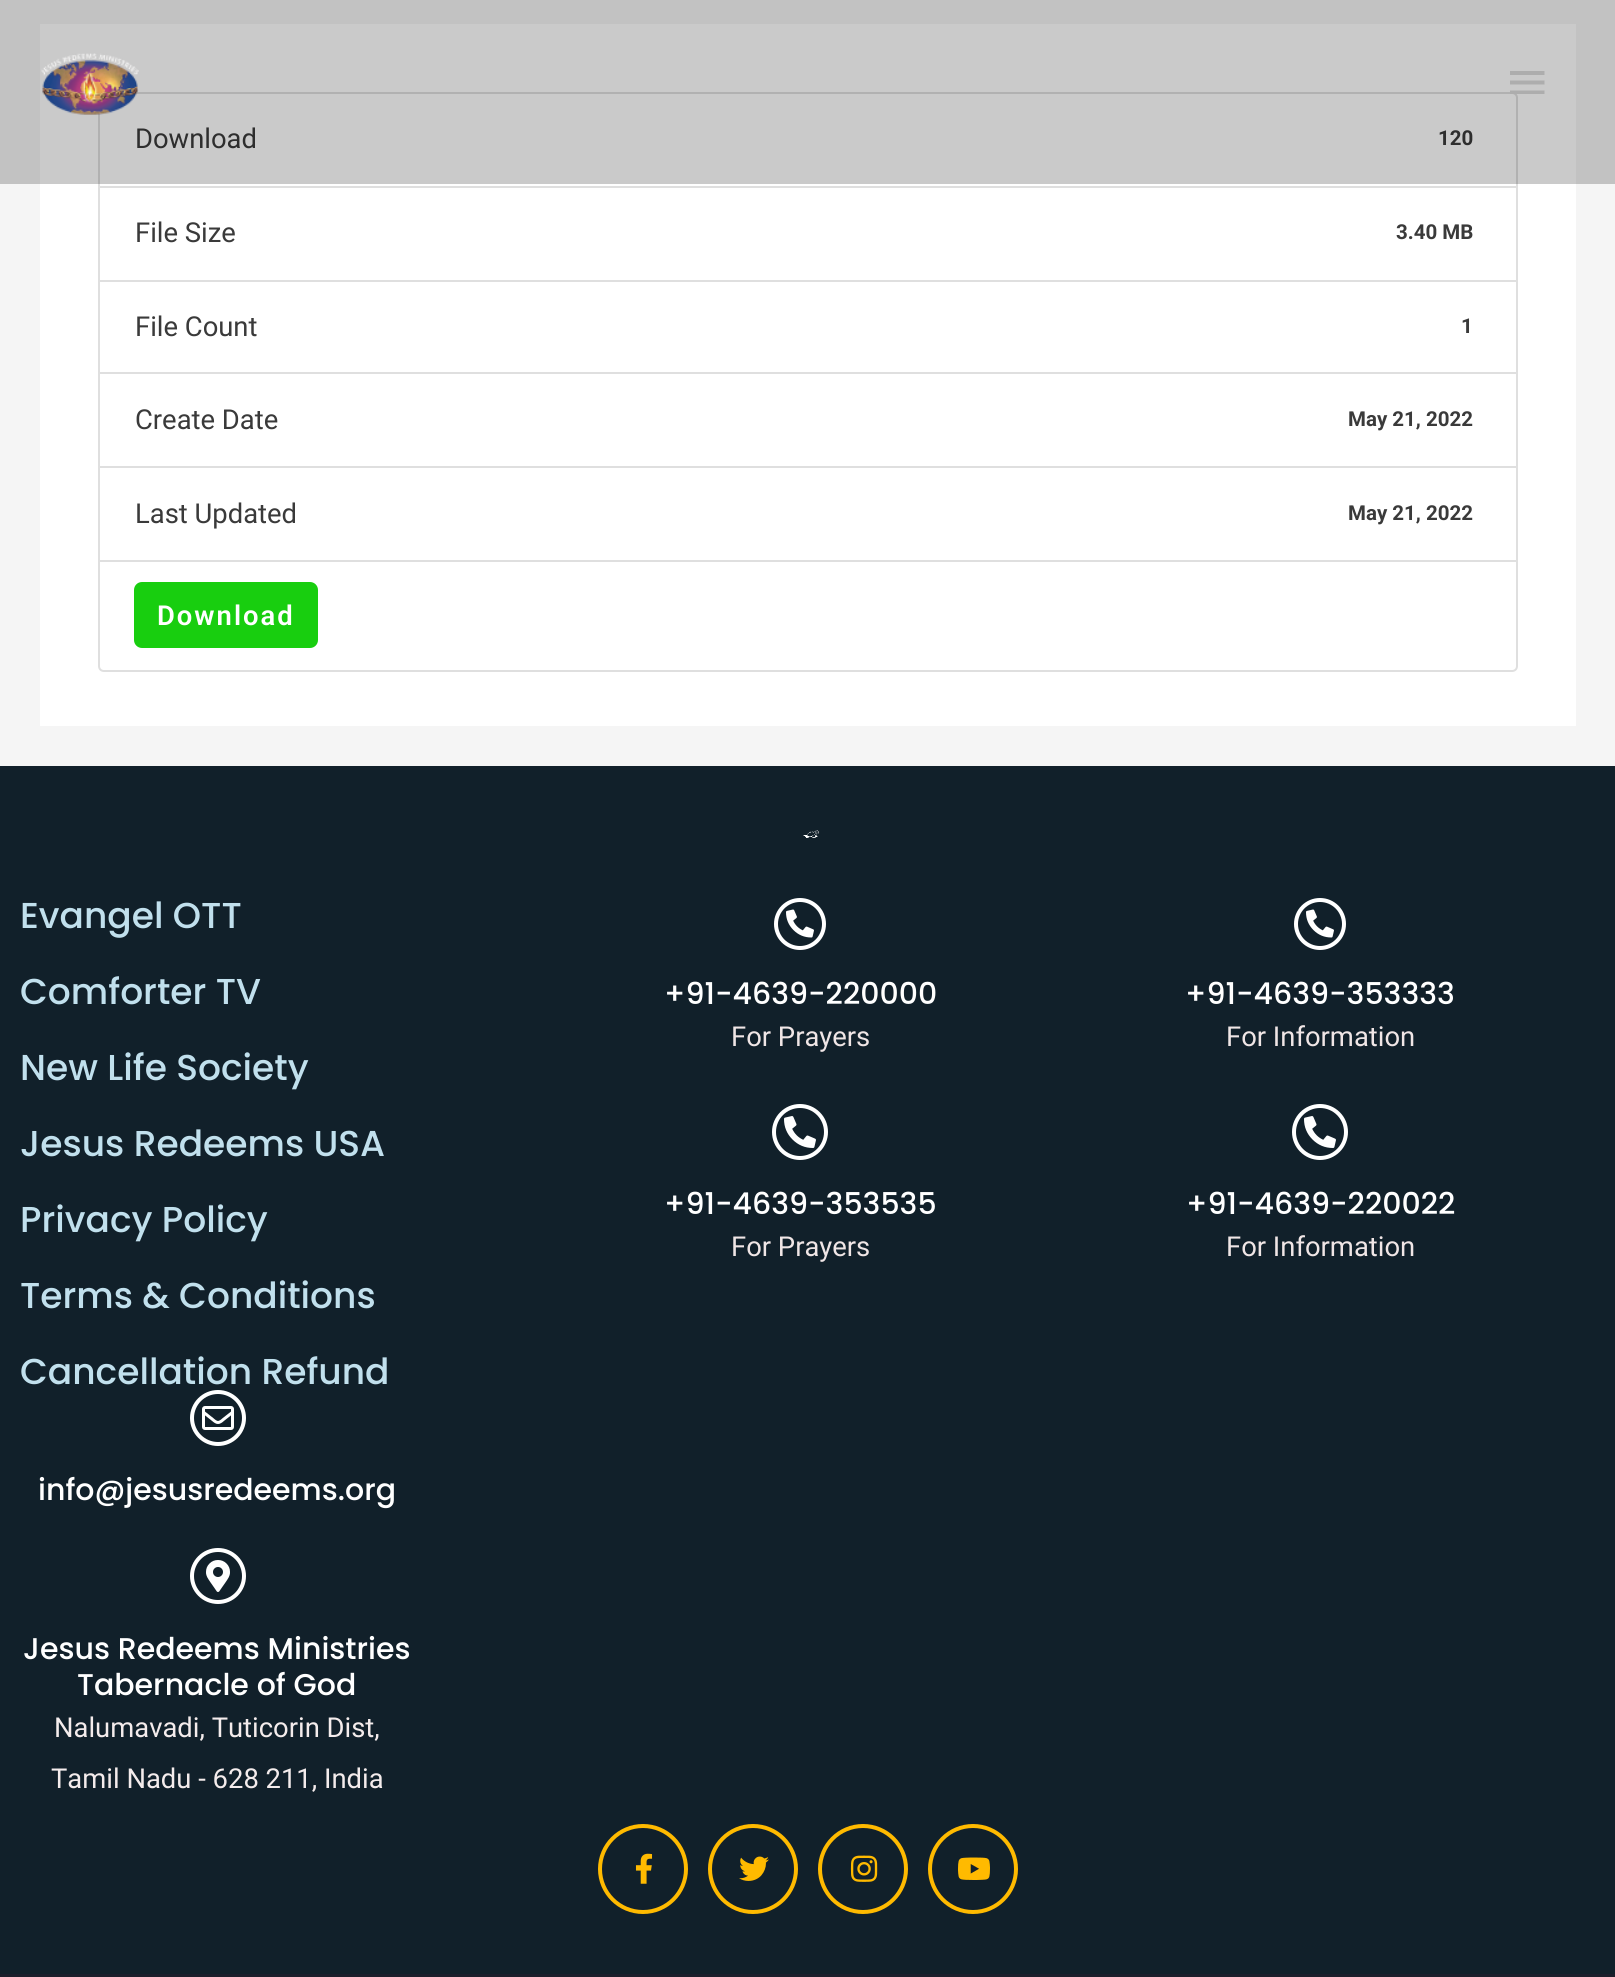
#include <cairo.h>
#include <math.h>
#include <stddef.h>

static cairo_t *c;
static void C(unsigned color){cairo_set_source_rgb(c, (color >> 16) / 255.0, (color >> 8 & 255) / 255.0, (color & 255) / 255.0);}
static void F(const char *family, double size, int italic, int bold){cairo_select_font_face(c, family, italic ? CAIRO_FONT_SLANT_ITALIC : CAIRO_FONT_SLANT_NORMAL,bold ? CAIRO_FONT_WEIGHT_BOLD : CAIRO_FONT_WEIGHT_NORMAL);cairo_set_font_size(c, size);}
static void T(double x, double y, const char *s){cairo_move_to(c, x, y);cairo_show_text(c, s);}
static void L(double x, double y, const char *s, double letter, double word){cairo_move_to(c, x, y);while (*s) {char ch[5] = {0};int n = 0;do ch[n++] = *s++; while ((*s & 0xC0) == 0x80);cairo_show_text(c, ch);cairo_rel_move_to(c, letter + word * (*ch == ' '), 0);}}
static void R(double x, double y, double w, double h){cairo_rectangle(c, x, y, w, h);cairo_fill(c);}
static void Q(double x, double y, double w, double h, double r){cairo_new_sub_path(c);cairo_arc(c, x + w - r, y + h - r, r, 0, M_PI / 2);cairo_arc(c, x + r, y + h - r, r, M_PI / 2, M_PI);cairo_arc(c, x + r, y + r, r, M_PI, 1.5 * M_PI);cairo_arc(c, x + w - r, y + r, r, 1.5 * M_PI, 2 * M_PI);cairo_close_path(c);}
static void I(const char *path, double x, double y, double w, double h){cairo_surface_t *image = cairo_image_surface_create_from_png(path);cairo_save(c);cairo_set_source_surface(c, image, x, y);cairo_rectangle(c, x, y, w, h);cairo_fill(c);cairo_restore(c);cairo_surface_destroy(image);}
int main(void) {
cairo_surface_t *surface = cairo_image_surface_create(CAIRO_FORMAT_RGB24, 1615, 1977);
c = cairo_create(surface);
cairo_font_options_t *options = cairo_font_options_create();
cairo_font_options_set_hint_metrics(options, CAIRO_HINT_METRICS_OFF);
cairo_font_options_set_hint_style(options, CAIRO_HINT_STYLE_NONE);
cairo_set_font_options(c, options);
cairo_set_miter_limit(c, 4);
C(0xf5f5f5);
cairo_paint(c);
C(0xffffff);
R(40,24,1536,702);
cairo_new_path(c);
cairo_move_to(c,104,93);
cairo_line_to(c,1512,93);
cairo_curve_to(c,1515,93,1517,95,1517,98);
cairo_line_to(c,1517,187);
cairo_line_to(c,99,187);
cairo_line_to(c,99,98);
cairo_curve_to(c,99,95,101,93,104,93);
cairo_close_path(c);
C(0xdfdfdf);
cairo_stroke(c);
F("Roboto",27.4,0,0);
C(0x3a3a3a);
T(135,148,"Download");
F("Roboto",20.5,0,1);
T(1438,145,"120");
cairo_set_source_rgba(c,0,0,0,0.21);
R(0,0,1615,184);
I("1.png",41,53,98,62);
C(0xadadad);
cairo_new_path(c);
cairo_move_to(c,1510,71);
cairo_line_to(c,1544.5,71);
cairo_line_to(c,1544.5,75);
cairo_line_to(c,1510,75);
cairo_close_path(c);
cairo_move_to(c,1510,84.5);
cairo_line_to(c,1510,80.5);
cairo_line_to(c,1544.5,80.5);
cairo_line_to(c,1544.5,84.5);
cairo_close_path(c);
cairo_move_to(c,1510,94);
cairo_line_to(c,1510,90.5);
cairo_line_to(c,1544.5,90.5);
cairo_line_to(c,1544.5,94);
cairo_close_path(c);
cairo_fill(c);
cairo_rectangle(c,99,187,1418,94);
C(0xdfdfdf);
cairo_stroke(c);
F("Roboto",27.4,0,0);
C(0x3a3a3a);
T(135,242,"File Size");
F("Roboto",20.5,0,1);
T(1396,239,"3.40 MB");
cairo_rectangle(c,99,281,1418,92);
C(0xdfdfdf);
cairo_stroke(c);
F("Roboto",27.4,0,0);
C(0x3a3a3a);
T(135,336,"File Count");
F("Roboto",20.5,0,1);
T(1461,333,"1");
cairo_rectangle(c,99,373,1418,94);
C(0xdfdfdf);
cairo_stroke(c);
F("Roboto",27.4,0,0);
C(0x3a3a3a);
T(135,429,"Create Date");
F("Roboto",20.5,0,1);
T(1348,426,"May 21, 2022");
cairo_rectangle(c,99,467,1418,94);
C(0xdfdfdf);
cairo_stroke(c);
F("Roboto",27.4,0,0);
C(0x3a3a3a);
T(135,523,"Last Updated");
F("Roboto",20.5,0,1);
T(1348,520,"May 21, 2022");
C(0xffffff);
cairo_new_path(c);
cairo_move_to(c,99,561);
cairo_line_to(c,1517,561);
cairo_line_to(c,1517,666);
cairo_curve_to(c,1517,669,1515,671,1512,671);
cairo_line_to(c,104,671);
cairo_curve_to(c,101,671,99,669,99,666);
cairo_close_path(c);
cairo_fill_preserve(c);
C(0xdfdfdf);
cairo_stroke(c);
C(0x18ce0f);
Q(135,583,182,64,7);
cairo_fill_preserve(c);
cairo_stroke(c);
F("Roboto SemiBold",27.4,0,0);
C(0xffffff);
L(157,625,"Download",2,0);
C(0x11202a);
R(0,766,1615,1208);
I("2.png",803,830,16,8);
F("Poppins Medium",36,0,0);
C(0xc1e0ed);
T(20,928,"Evangel OTT");
T(20,1004,"Comforter TV");
T(20,1080,"New Life Society");
T(20,1156,"Jesus Redeems USA");
T(20,1232,"Privacy Policy");
T(20,1308,"Terms & Conditions");
T(20,1384,"Cancellation Refund");
cairo_new_path(c);
cairo_arc(c,800,924,24,0,2 * M_PI);
C(0xffffff);
cairo_set_line_width(c,4);
cairo_stroke(c);
I("3.png",786,909,28,29);
F("Poppins Medium",30,0,0);
T(664,1004,"+91-4639-220000");
F("Roboto",27.4,0,0);
C(0xf0e6e6);
T(731,1046,"For Prayers");
cairo_new_path(c);
cairo_arc(c,800,1132,26,0,2 * M_PI);
C(0xffffff);
cairo_stroke(c);
I("4.png",784,1116,32,32);
F("Poppins Medium",30,0,0);
T(664,1214,"+91-4639-353535");
F("Roboto",27.4,0,0);
C(0xf0e6e6);
T(731,1256,"For Prayers");
cairo_new_path(c);
cairo_arc(c,1320,924,24,0,2 * M_PI);
C(0xffffff);
cairo_stroke(c);
I("3.png",1306,909,28,29);
F("Poppins Medium",30,0,0);
T(1185,1004,"+91-4639-353333");
F("Roboto",27.4,0,0);
C(0xf0e6e6);
T(1226,1046,"For Information");
cairo_new_path(c);
cairo_arc(c,1320,1132,26,0,2 * M_PI);
C(0xffffff);
cairo_stroke(c);
I("4.png",1304,1116,32,32);
F("Poppins Medium",30,0,0);
T(1186,1214,"+91-4639-220022");
F("Roboto",27.4,0,0);
C(0xf0e6e6);
T(1226,1256,"For Information");
cairo_new_path(c);
cairo_arc(c,218,1418,26,0,2 * M_PI);
C(0xffffff);
cairo_stroke(c);
I("5.png",202,1406,32,24);
F("Poppins Medium",30,0,0);
T(38,1500,"info@jesusredeems.org");
cairo_new_path(c);
cairo_arc(c,218,1576,26,0,2 * M_PI);
cairo_stroke(c);
I("6.png",206,1560,24,32);
T(23,1659,"Jesus Redeems Ministries");
T(77,1695,"Tabernacle of God");
F("Roboto",27.4,0,0);
C(0xf4ecec);
T(54,1737,"Nalumavadi, Tuticorin Dist,");
T(51,1788,"Tamil Nadu - 628 211, India");
cairo_new_path(c);
cairo_arc(c,643,1869,43,0,2 * M_PI);
C(0xffba00);
cairo_stroke(c);
I("7.png",635,1853,18,31);
cairo_arc(c,753,1869,43,0,2 * M_PI);
cairo_stroke(c);
I("8.png",739,1856,30,25);
cairo_arc(c,863,1869,43,0,2 * M_PI);
cairo_stroke(c);
I("9.png",850,1855,28,27);
cairo_arc(c,973,1869,43,0,2 * M_PI);
cairo_stroke(c);
I("10.png",958,1857,32,23);
C(0x1b1e2b);
R(0,1974,1615,3);
cairo_surface_write_to_png(surface, "o.png");
cairo_font_options_destroy(options);
cairo_destroy(c);
cairo_surface_destroy(surface);
return 0;
}
